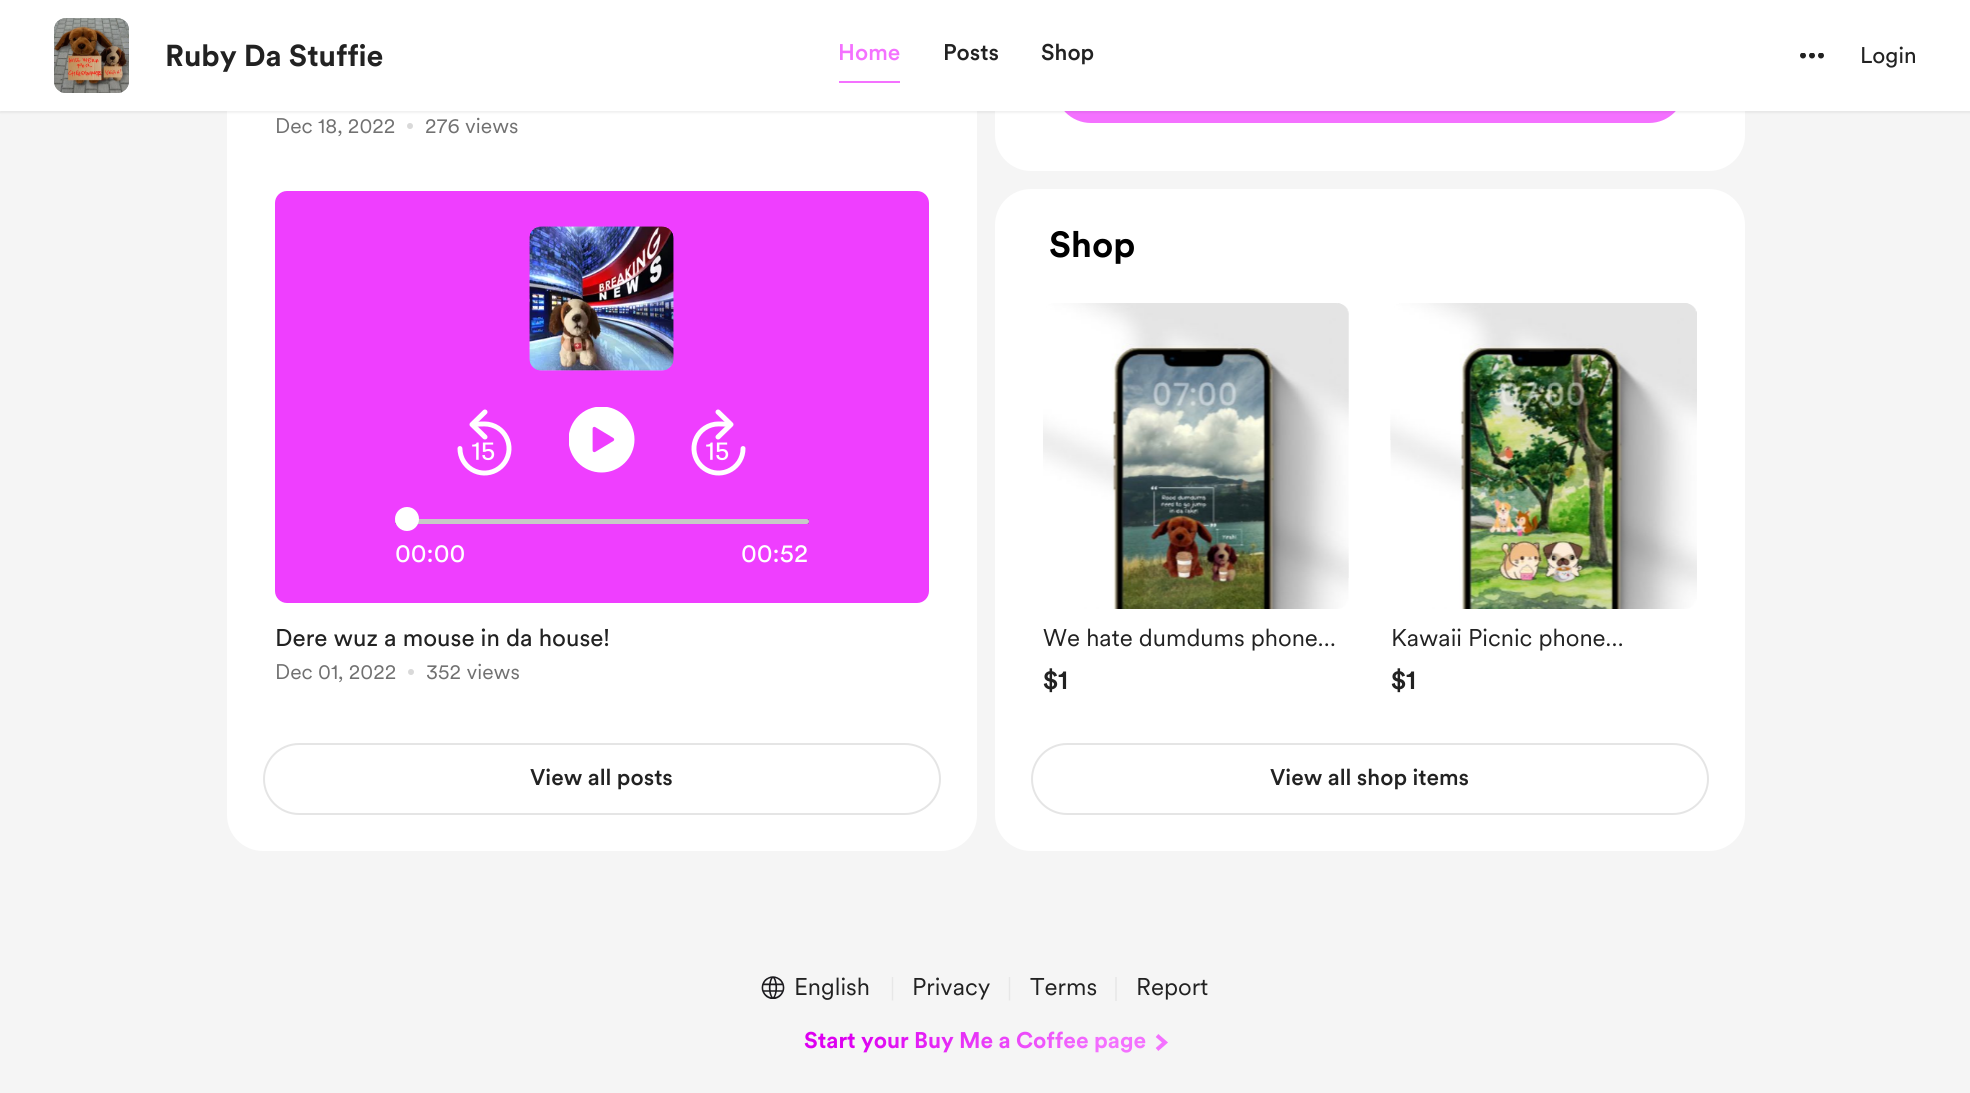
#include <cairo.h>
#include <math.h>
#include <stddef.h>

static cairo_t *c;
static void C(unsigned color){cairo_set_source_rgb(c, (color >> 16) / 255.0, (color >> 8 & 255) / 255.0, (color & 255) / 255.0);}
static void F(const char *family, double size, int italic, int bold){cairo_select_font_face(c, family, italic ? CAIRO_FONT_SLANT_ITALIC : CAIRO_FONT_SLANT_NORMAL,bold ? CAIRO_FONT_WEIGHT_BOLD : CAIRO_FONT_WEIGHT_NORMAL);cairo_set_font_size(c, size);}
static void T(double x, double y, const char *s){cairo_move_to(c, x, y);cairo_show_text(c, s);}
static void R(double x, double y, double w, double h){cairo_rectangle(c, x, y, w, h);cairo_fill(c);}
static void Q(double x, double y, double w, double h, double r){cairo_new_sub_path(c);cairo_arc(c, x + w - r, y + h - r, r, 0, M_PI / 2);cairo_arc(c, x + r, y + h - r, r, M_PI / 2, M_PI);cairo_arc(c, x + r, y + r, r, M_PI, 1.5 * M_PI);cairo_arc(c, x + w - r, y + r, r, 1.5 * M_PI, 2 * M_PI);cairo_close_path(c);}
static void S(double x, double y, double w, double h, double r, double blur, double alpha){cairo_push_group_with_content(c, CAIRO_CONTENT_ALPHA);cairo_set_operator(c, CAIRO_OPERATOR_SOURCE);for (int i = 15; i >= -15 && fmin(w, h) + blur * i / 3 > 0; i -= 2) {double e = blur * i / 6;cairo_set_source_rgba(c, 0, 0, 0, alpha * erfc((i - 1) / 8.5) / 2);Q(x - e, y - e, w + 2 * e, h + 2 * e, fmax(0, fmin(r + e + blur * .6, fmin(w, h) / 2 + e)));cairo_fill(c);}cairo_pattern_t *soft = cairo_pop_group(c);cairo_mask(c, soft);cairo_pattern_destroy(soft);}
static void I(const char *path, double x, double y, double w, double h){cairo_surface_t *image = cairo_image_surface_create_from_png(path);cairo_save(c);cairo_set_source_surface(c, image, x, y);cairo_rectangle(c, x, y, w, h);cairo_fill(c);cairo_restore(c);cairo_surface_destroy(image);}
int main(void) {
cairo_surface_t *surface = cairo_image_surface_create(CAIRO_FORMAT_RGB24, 1970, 1093);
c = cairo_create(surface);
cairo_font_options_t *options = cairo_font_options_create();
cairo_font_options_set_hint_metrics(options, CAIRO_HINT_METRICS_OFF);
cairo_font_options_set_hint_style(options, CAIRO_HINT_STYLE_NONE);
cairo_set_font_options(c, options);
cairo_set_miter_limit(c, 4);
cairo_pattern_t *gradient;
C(0xf5f5f5);
cairo_paint(c);
C(0xffffff);
Q(227,-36,750,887,36);
cairo_fill(c);
Q(995,-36,750,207,36);
cairo_fill(c);
C(0xf471ff);
Q(1055,51,630,72,36);
cairo_fill(c);
C(0x000000);
S(0,2,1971,111,0,1,.06);
C(0xffffff);
R(0,0,1970,111);
I("1.png",54,18,75,75);
I("2.png",54,18,75,75);
F("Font",30,0,1);
C(0x222222);
T(165,66,"Ruby Da Stuffie");
F("Font Medium",22.5,0,0);
C(0xf471ff);
T(838,60,"Home");
R(839,81,61,2);
C(0x222222);
T(943,60,"Posts");
T(1041,60,"Shop");
I("3.png",1800,53,24,6);
F("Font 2",22.5,0,0);
T(1860,63,"Login");
F("Font",21,0,0);
C(0x717171);
T(275,133,"Dec 18, 2022");
C(0xd9d9d9);
cairo_new_path(c);
cairo_arc(c,410,126,3,0,2 * M_PI);
cairo_fill(c);
C(0x717171);
T(425,133,"276 views");
C(0xef3eff);
Q(275,191,654,412,12);
cairo_fill(c);
C(0xbc37c8);
R(395,519,414,5);
I("4.png",529,226,145,145);
I("5.png",529,226,145,145);
I("6.png",457,409,55,67);
I("7.png",569,407,66,66);
I("8.png",691,409,55,67);
C(0xc8c8c8);
Q(395,519,414,5,2.5);
cairo_fill(c);
C(0xffffff);
cairo_arc(c,407,519,11,0,2 * M_PI);
cairo_fill_preserve(c);
cairo_stroke(c);
F("Font 2",25.5,0,0);
T(395,562,"00:00");
T(741,562,"00:52");
F("Font 2",24,0,0);
C(0x222222);
T(275,646,"Dere wuz a mouse in da house!");
F("Font",21,0,0);
C(0x717171);
T(275,679,"Dec 01, 2022");
C(0xd9d9d9);
cairo_new_path(c);
cairo_arc(c,411,672,3,0,2 * M_PI);
cairo_fill(c);
C(0x717171);
T(426,679,"352 views");
Q(264,744,676,70,35);
C(0xe5e5e5);
cairo_stroke(c);
F("Font Medium",22.5,0,0);
C(0x222222);
T(530,785,"View all posts");
C(0xffffff);
Q(995,189,750,662,36);
cairo_fill(c);
F("Font",36,0,1);
C(0x000000);
T(1049,257,"Shop");
I("9.png",1043,303,306,306);
I("10.png",1338,303,11,275);
F("Font",24,0,0);
C(0x222222);
T(1043,646,"We hate dumdums phone…");
F("Font Medium",27,0,0);
T(1043,689,"$1");
I("11.png",1390,303,307,306);
I("12.png",1390,303,307,137);
F("Font",24,0,0);
T(1391,646,"Kawaii Picnic phone…");
F("Font Medium",27,0,0);
T(1391,689,"$1");
Q(1032,744,676,70,35);
C(0xe5e5e5);
cairo_stroke(c);
F("Font Medium",22.5,0,0);
C(0x222222);
T(1270,785,"View all shop items");
I("13.png",761,976,24,23);
F("Font",24,0,0);
T(794,995,"English");
cairo_save(c);
cairo_rectangle(c,891,977,3,24);
cairo_clip(c);
cairo_new_path(c);
cairo_move_to(c,892.5,976.5);
cairo_line_to(c,892.5,1000.5);
C(0xe7e7e7);
cairo_set_line_width(c,1.5);
cairo_stroke(c);
cairo_restore(c);
T(912,995,"Privacy");
cairo_save(c);
cairo_rectangle(c,1008,977,3,24);
cairo_clip(c);
cairo_new_path(c);
cairo_move_to(c,1009.5,976.5);
cairo_line_to(c,1009.5,1000.5);
C(0xe7e7e7);
cairo_set_line_width(c,1.5);
cairo_stroke(c);
cairo_restore(c);
T(1030,995,"Terms");
C(0xeaeaea);
R(1115,977,2,24);
C(0x222222);
T(1136,995,"Report");
F("Font",22.5,0,1);
gradient = cairo_pattern_create_linear(826,973,1145,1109);
cairo_pattern_add_color_stop_rgba(gradient,.14,0.867,0,0.945,1);
cairo_pattern_add_color_stop_rgba(gradient,.82,0.957,0.443,1,1);
cairo_set_source(c,gradient);
cairo_pattern_destroy(gradient);
T(804,1048,"Start your Buy Me a Coffee page");
cairo_new_path(c);
cairo_move_to(c,1157,1035.5);
cairo_line_to(c,1165,1042.5);
cairo_line_to(c,1157,1049.5);
C(0xf471ff);
cairo_set_line_width(c,4);
cairo_stroke(c);
cairo_surface_write_to_png(surface, "o.png");
cairo_font_options_destroy(options);
cairo_destroy(c);
cairo_surface_destroy(surface);
return 0;
}
